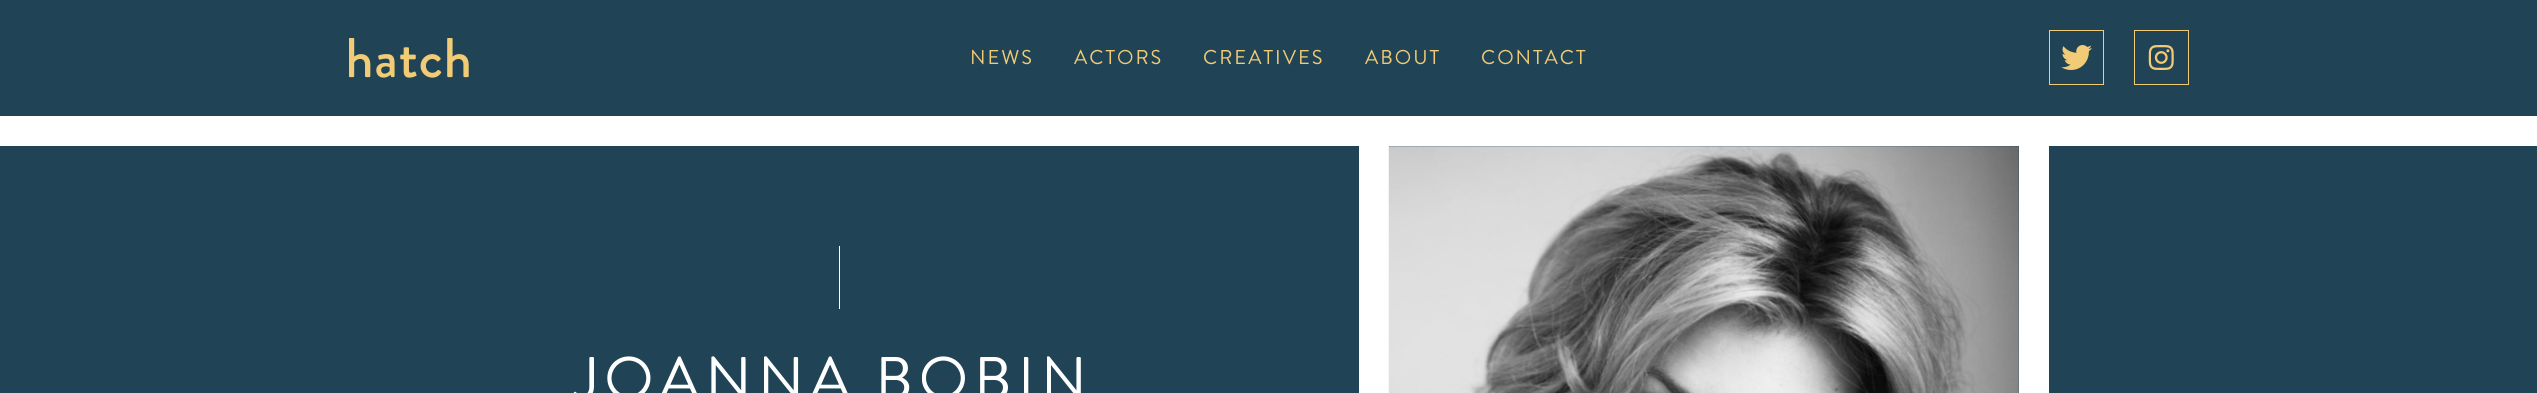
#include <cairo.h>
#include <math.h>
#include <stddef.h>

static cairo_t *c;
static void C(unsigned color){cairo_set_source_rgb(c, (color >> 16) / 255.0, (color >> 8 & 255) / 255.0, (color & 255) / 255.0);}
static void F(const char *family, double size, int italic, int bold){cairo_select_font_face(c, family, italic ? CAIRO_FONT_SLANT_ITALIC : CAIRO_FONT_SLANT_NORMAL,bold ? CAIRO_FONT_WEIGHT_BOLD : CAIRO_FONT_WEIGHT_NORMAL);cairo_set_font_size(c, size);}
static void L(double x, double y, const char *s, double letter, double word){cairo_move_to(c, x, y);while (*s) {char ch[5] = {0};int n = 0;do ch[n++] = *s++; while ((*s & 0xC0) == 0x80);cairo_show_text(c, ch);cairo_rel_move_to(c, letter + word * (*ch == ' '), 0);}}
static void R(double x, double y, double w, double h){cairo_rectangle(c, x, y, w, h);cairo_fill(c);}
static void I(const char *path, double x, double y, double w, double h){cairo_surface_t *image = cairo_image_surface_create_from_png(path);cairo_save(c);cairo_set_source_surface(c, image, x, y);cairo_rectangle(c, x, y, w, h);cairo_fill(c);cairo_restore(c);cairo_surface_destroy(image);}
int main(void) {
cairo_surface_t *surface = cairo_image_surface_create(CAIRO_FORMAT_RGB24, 2537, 393);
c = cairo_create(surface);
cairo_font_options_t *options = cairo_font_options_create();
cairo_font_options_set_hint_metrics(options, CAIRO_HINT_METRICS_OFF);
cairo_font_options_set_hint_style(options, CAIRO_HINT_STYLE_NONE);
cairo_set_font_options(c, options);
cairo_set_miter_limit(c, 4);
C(0x204456);
cairo_paint(c);
I("1.png",349,38,120,40);
F("Brandon Grotesque",20,0,0);
C(0xf1cb75);
L(970,64,"NEWS",2,0);
L(1074,64,"ACTORS",2,0);
L(1203,64,"CREATIVES",2,0);
L(1365,64,"ABOUT",2,0);
L(1481,64,"CONTACT",2,0);
cairo_rectangle(c,2049.5,30.5,54,54);
cairo_set_line_width(c,1);
cairo_stroke(c);
I("2.png",2061,45,31,25);
cairo_rectangle(c,2134.5,30.5,54,54);
cairo_stroke(c);
I("3.png",2148,45,26,25);
C(0xffffff);
R(0,116,2537,30);
R(839,246,1,63);
F("Brandon Grotesque",60,0,0);
L(574,399,"JOANNA BOBIN",6,0);
R(2019,146,30,247);
R(1359,146,30,247);
I("4.png",1388,146,631,247);
cairo_surface_write_to_png(surface, "o.png");
cairo_font_options_destroy(options);
cairo_destroy(c);
cairo_surface_destroy(surface);
return 0;
}
